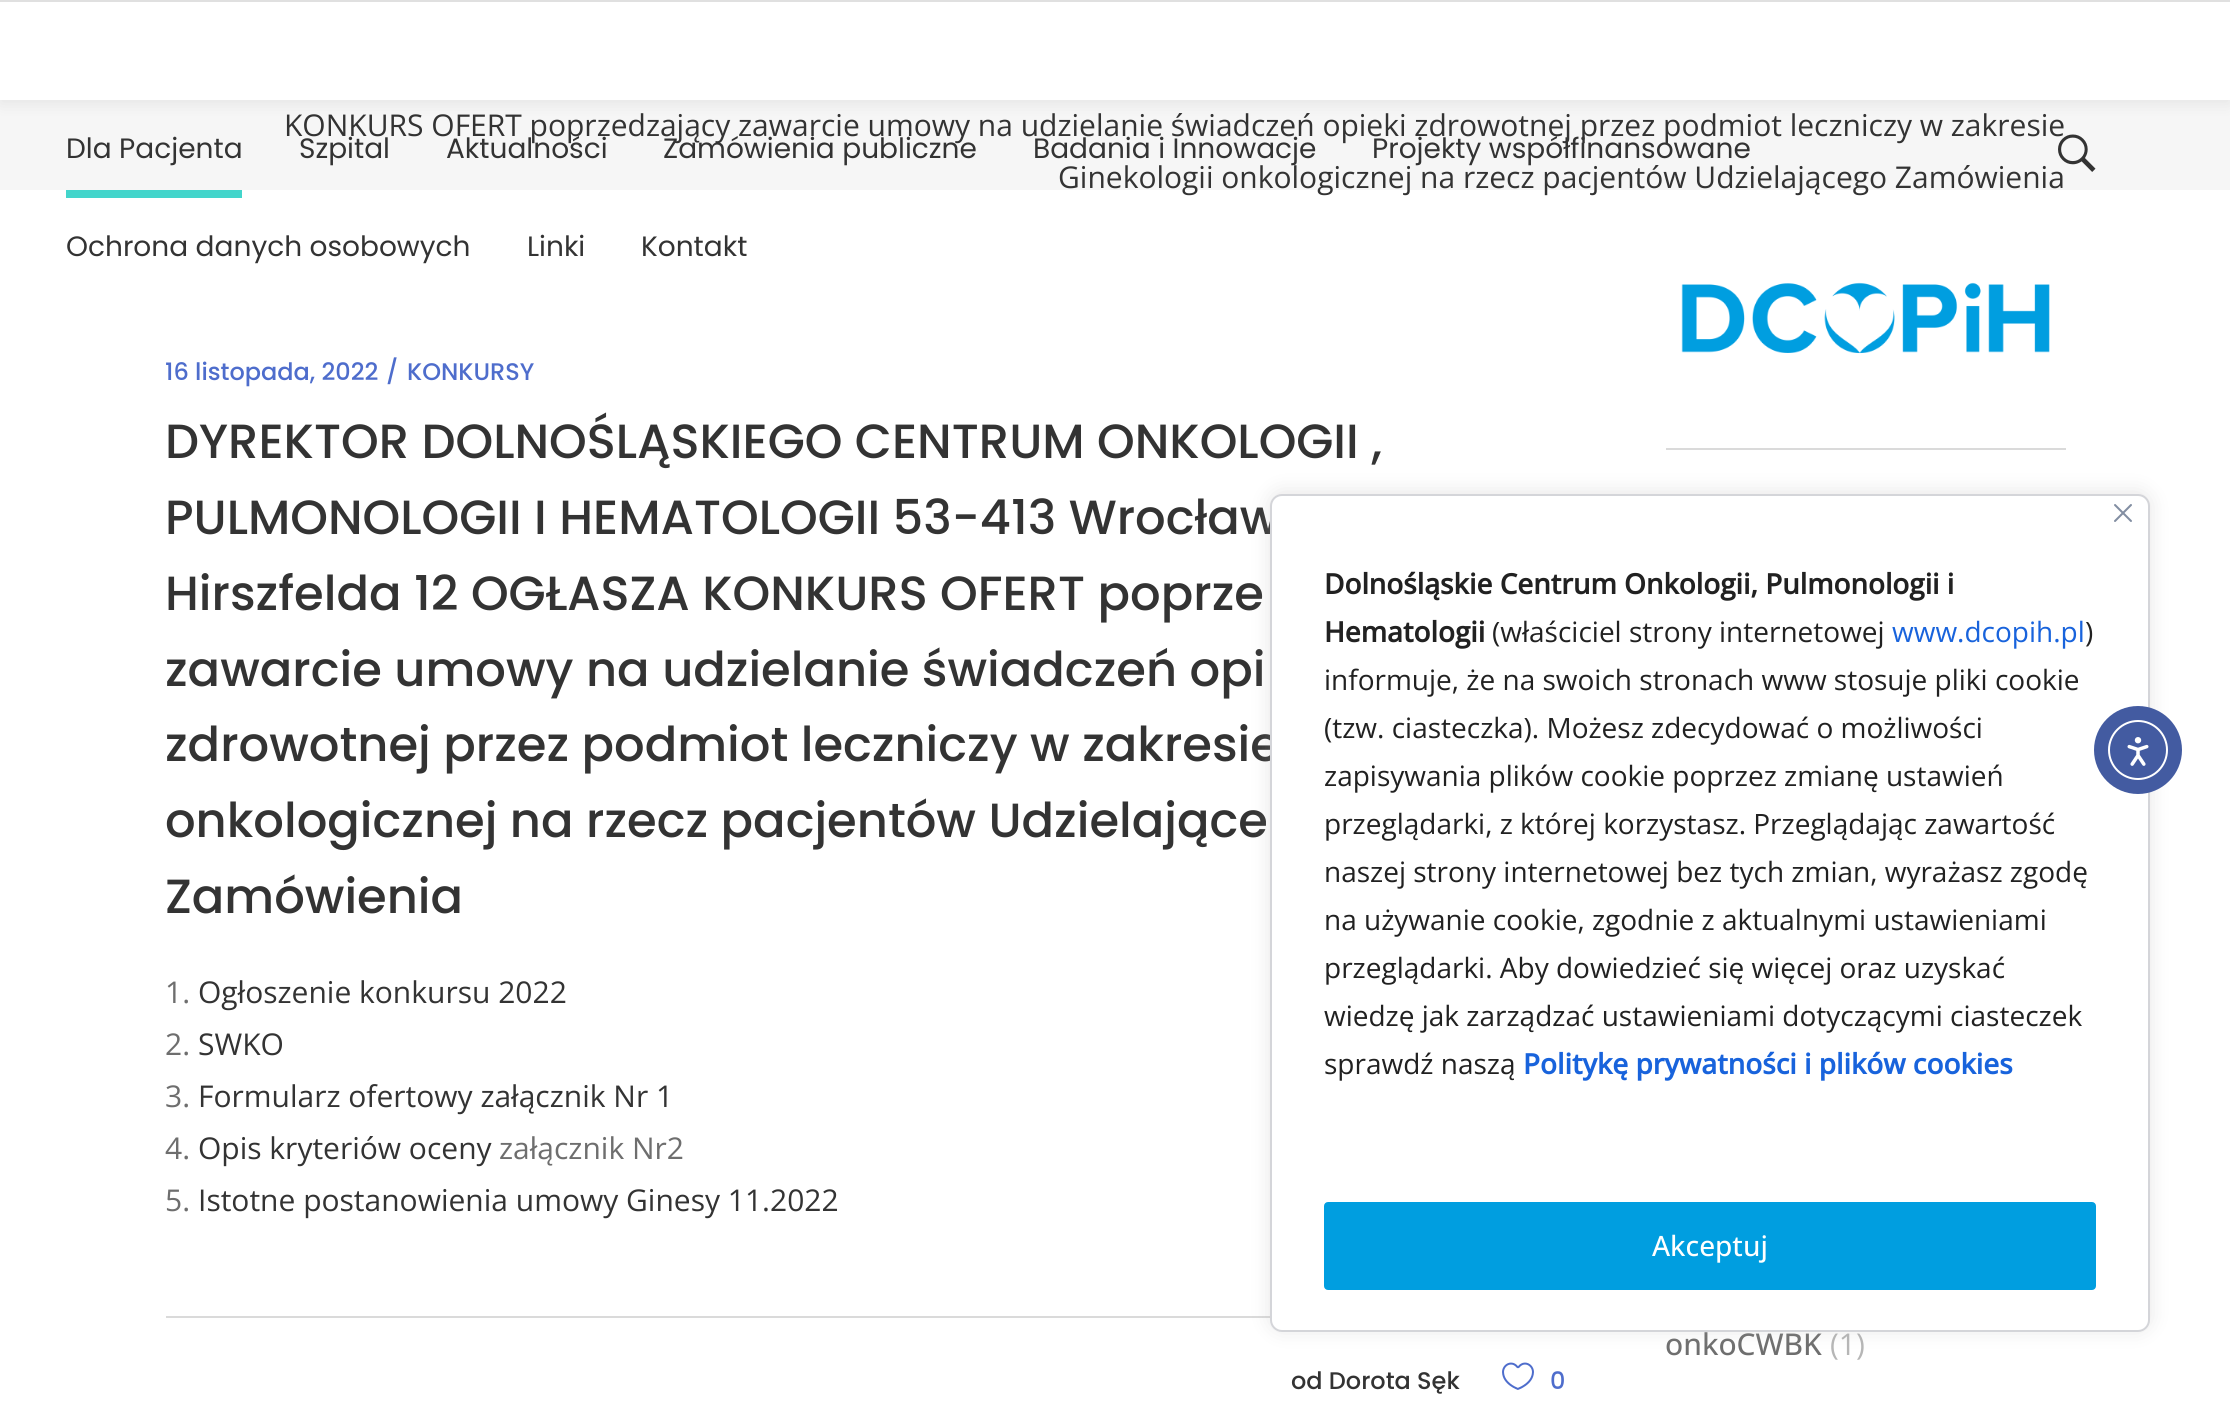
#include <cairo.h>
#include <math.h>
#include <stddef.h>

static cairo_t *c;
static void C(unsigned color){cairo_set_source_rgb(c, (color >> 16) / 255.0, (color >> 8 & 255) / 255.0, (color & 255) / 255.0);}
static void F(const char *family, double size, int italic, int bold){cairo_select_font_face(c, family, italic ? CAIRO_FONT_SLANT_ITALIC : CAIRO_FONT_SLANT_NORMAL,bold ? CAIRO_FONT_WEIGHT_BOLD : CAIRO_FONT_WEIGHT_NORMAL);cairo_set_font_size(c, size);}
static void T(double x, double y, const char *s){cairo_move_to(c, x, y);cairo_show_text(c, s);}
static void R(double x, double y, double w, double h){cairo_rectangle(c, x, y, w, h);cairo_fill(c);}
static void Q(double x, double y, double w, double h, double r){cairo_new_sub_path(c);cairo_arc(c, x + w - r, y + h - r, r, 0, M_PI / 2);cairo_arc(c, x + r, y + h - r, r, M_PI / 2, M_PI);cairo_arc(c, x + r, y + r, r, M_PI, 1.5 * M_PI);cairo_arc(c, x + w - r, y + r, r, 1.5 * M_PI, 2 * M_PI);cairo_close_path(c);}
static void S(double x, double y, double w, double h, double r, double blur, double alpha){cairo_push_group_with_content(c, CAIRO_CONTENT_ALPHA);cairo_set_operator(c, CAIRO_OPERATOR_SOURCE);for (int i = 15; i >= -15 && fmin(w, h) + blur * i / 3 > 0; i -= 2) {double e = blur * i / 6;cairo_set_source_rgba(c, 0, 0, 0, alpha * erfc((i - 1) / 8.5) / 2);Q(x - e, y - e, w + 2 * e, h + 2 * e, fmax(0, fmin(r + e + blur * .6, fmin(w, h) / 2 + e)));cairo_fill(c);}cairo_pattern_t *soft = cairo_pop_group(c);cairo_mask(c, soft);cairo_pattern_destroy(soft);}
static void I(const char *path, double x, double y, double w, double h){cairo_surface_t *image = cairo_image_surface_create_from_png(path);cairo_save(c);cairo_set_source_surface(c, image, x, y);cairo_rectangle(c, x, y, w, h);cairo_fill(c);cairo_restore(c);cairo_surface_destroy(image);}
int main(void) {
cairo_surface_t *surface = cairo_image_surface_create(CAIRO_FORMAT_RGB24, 2230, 1411);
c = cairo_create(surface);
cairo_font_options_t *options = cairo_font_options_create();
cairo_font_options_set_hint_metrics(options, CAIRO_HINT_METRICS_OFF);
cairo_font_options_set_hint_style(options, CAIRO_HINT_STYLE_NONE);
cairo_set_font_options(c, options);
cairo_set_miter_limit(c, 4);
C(0xffffff);
cairo_paint(c);
C(0xf6f6f6);
R(0,100,2230,90);
F("Open Sans",30,0,0);
C(0x333333);
T(284,136,"KONKURS OFERT poprzedzający zawarcie umowy na udzielanie świadczeń opieki zdrowotnej przez podmiot leczniczy w zakresie");
T(1058,188,"Ginekologii onkologicznej na rzecz pacjentów Udzielającego Zamówienia");
F("Poppins Medium",24,0,0);
C(0x4e6dcc);
T(165,380,"16 listopada, 2022");
T(386,380,"/");
T(407,380,"KONKURSY");
F("Poppins Medium",48,0,0);
C(0x333333);
T(165,458,"DYREKTOR DOLNOŚLĄSKIEGO CENTRUM ONKOLOGII ,");
T(165,534,"PULMONOLOGII I HEMATOLOGII 53-413 Wrocław");
T(165,610,"Hirszfelda 12 OGŁASZA KONKURS OFERT poprze");
T(165,686,"zawarcie umowy na udzielanie świadczeń opi");
T(165,761,"zdrowotnej przez podmiot leczniczy w zakresie");
T(165,837,"onkologicznej na rzecz pacjentów Udzielające");
T(165,913,"Zamówienia");
F("Open Sans",30,0,0);
C(0x6e6e6e);
T(165,1003,"1.");
C(0x333333);
T(198,1003,"Ogłoszenie konkursu 2022");
C(0x6e6e6e);
T(165,1055,"2.");
C(0x333333);
T(198,1055,"SWKO");
C(0x6e6e6e);
T(165,1107,"3.");
C(0x333333);
T(198,1107,"Formularz ofertowy załącznik Nr 1");
C(0x6e6e6e);
T(165,1159,"4.");
C(0x333333);
T(198,1159,"Opis kryteriów oceny");
C(0x6e6e6e);
T(499,1159,"załącznik Nr2");
T(165,1211,"5.");
C(0x333333);
T(198,1211,"Istotne postanowienia umowy Ginesy 11.2022");
C(0xdadada);
R(166,1316,1104,2);
F("Poppins Medium",24,0,0);
C(0x333333);
T(1291,1389,"od Dorota Sęk");
I("1.png",1502,1362,32,28);
C(0x4e6dcc);
T(1550,1389,"0");
I("2.png",1681,282,369,72);
C(0xdadada);
R(1666,448,400,2);
F("Open Sans Medium",30,0,0);
C(0x6e6e6e);
T(1665,1355,"onkoCWBK");
F("Open Sans",30,0,0);
C(0xb6b6b6);
T(1830,1355,"(1)");
C(0x000000);
S(0,4,2230,100,0,8,.07);
C(0xffffff);
R(0,2,2230,98);
C(0xe0e0e0);
R(0,0,2230,2);
F("Poppins",28,0,0);
C(0x333333);
T(66,158,"Dla Pacjenta");
T(299,158,"Szpital");
T(446,158,"Aktualności");
T(663,158,"Zamówienia publiczne");
T(1033,158,"Badania i Innowacje");
T(1372,158,"Projekty współfinansowane");
C(0x43d5cb);
R(66,190,176,8);
C(0x333333);
T(66,256,"Ochrona danych osobowych");
T(527,256,"Linki");
T(641,256,"Kontakt");
I("3.png",2058,134,38,38);
C(0xacabab);
S(1270,492,880,838,12,10,.3);
C(0xffffff);
Q(1271,495,878,836,11);
cairo_fill_preserve(c);
C(0xd4d5d9);
cairo_stroke(c);
I("4.png",2114,504,18,18);
F("Open Sans",28,0,1);
C(0x212121);
T(1324,594,"Dolnośląskie Centrum Onkologii, Pulmonologii i");
T(1324,642,"Hematologii");
F("Open Sans",28,0,0);
T(1492,642,"(właściciel strony internetowej");
C(0x1863dc);
T(1892,642,"www.dcopih.pl");
C(0x212121);
T(2085,642,")");
T(1324,690,"informuje, że na swoich stronach www stosuje pliki cookie");
T(1324,738,"(tzw. ciasteczka). Możesz zdecydować o możliwości");
T(1324,786,"zapisywania plików cookie poprzez zmianę ustawień");
T(1324,834,"przeglądarki, z której korzystasz. Przeglądając zawartość");
T(1324,882,"naszej strony internetowej bez tych zmian, wyrażasz zgodę");
T(1324,930,"na używanie cookie, zgodnie z aktualnymi ustawieniami");
T(1324,978,"przeglądarki. Aby dowiedzieć się więcej oraz uzyskać");
T(1324,1026,"wiedzę jak zarządzać ustawieniami dotyczącymi ciasteczek");
T(1324,1074,"sprawdź naszą");
F("Open Sans",28,0,1);
C(0x1863dc);
T(1523,1074,"Politykę prywatności i plików cookies");
C(0x009ee0);
Q(1326,1204,768,84,2);
cairo_fill_preserve(c);
cairo_set_line_width(c,4);
cairo_stroke(c);
F("Open Sans Medium",28,0,0);
C(0xffffff);
T(1652,1256,"Akceptuj");
C(0x435ba1);
cairo_new_path(c);
cairo_arc(c,2138,750,44,0,2 * M_PI);
cairo_fill(c);
cairo_arc(c,2138,750,29,0,2 * M_PI);
C(0xffffff);
cairo_set_line_width(c,2);
cairo_stroke(c);
I("5.png",2127,737,22,29);
cairo_surface_write_to_png(surface, "o.png");
cairo_font_options_destroy(options);
cairo_destroy(c);
cairo_surface_destroy(surface);
return 0;
}
